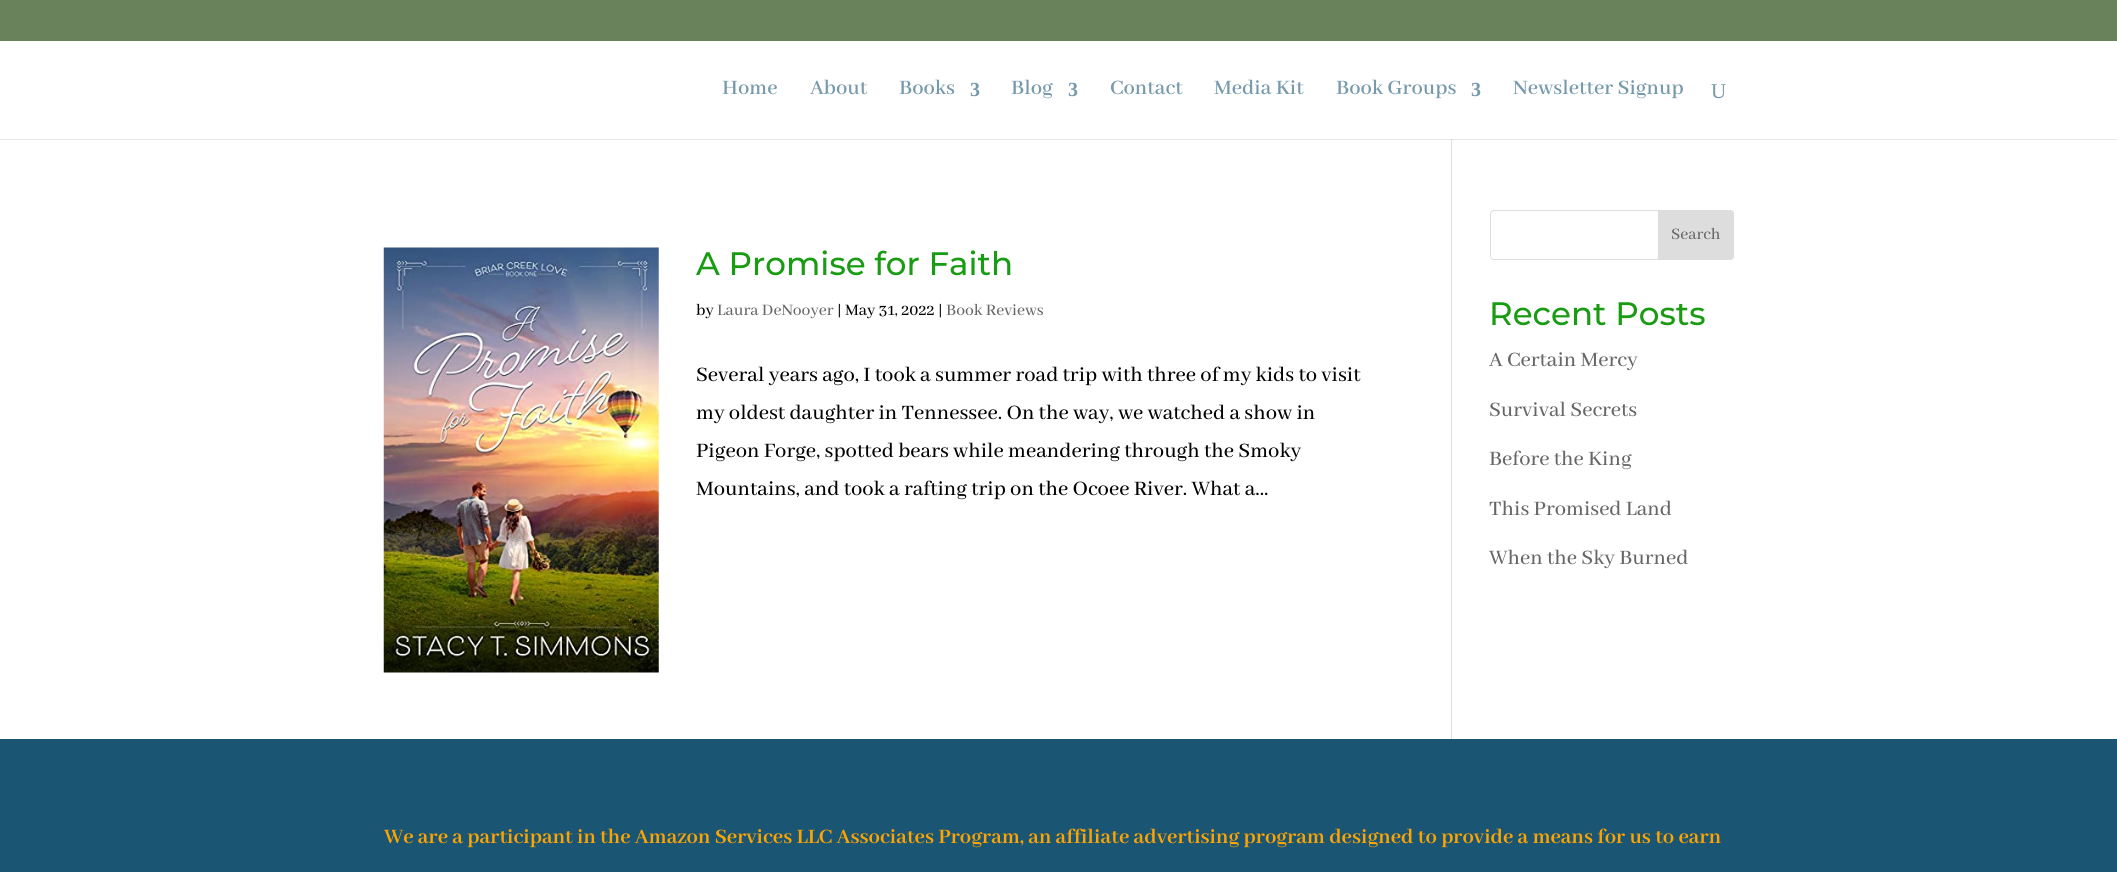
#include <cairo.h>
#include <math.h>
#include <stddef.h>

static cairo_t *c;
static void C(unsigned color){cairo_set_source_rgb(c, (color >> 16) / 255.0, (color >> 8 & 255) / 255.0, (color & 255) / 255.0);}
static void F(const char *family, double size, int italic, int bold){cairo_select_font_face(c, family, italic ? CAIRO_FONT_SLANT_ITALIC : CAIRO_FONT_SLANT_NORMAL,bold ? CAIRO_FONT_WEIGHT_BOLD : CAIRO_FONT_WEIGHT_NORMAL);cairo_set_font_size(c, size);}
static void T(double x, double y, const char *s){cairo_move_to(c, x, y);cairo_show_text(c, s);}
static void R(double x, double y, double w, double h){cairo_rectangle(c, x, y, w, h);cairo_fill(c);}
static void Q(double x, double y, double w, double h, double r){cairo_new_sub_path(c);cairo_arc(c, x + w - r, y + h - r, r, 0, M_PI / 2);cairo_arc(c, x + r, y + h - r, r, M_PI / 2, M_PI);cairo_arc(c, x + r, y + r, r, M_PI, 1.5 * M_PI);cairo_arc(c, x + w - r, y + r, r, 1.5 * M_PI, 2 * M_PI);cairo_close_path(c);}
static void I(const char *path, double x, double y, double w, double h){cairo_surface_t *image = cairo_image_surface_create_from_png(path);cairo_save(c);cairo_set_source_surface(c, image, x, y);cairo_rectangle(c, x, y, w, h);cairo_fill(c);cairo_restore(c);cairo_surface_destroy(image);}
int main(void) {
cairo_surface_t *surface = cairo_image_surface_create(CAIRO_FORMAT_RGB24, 2117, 872);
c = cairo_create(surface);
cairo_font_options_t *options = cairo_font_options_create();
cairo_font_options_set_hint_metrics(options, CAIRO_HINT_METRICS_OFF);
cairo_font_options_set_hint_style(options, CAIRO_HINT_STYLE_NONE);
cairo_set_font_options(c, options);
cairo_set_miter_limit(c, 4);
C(0xffffff);
cairo_paint(c);
C(0x6a825c);
R(0,0,2117,41);
C(0xe2e2e2);
R(1451,138,1,601);
cairo_set_source_rgba(c,0,0,0,0.1);
cairo_new_path(c);
cairo_move_to(c,0,139);
cairo_line_to(c,0,140);
cairo_line_to(c,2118,140);
cairo_line_to(c,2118,43);
cairo_line_to(c,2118,139);
cairo_close_path(c);
cairo_fill(c);
C(0xffffff);
R(1451,138,1,1);
F("Abhaya Libre SemiBold SemiBold",22.5,0,0);
C(0x7699ab);
T(722,94,"Home");
T(810,94,"About");
T(899,94,"Books");
F("Liberation Serif",20,0,1);
T(970,96,"3");
F("Abhaya Libre SemiBold SemiBold",22.5,0,0);
T(1011,94,"Blog");
F("Liberation Serif",20,0,1);
T(1068,96,"3");
F("Abhaya Libre SemiBold SemiBold",22.5,0,0);
T(1110,94,"Contact");
T(1214,94,"Media Kit");
T(1336,94,"Book Groups");
F("Liberation Serif",20,0,1);
T(1471,96,"3");
F("Abhaya Libre SemiBold SemiBold",22.5,0,0);
T(1513,94,"Newsletter Signup");
F("Liberation Serif",21,0,0);
T(1711,98,"U");
I("1.png",383,247,276,426);
F("Montserrat Medium",32.5,0,0);
C(0x199b13);
T(696,275,"A Promise for Faith");
F("Abhaya Libre Medium Medium",17.5,0,0);
C(0x000000);
T(696,315,"by");
C(0x666666);
T(717,315,"Laura DeNooyer");
C(0x000000);
T(837,315,"| May 31, 2022 |");
C(0x666666);
T(946,315,"Book Reviews");
F("Abhaya Libre Medium Medium",22.5,0,0);
C(0x000000);
T(696,381,"Several years ago, I took a summer road trip with three of my kids to visit");
T(696,419,"my oldest daughter in Tennessee. On the way, we watched a show in");
T(696,457,"Pigeon Forge, spotted bears while meandering through the Smoky");
T(696,495,"Mountains, and took a rafting trip on the Ocoee River. What a...");
Q(1490.5,210.5,243,49,3.5);
C(0xdddddd);
cairo_set_line_width(c,1);
cairo_stroke(c);
cairo_new_path(c);
cairo_move_to(c,1658.5,210.5);
cairo_line_to(c,1730,210.5);
cairo_curve_to(c,1732,210.5,1733.5,212,1733.5,214);
cairo_line_to(c,1733.5,256);
cairo_curve_to(c,1733.5,258,1732,259.5,1730,259.5);
cairo_line_to(c,1658.5,259.5);
cairo_close_path(c);
cairo_fill_preserve(c);
cairo_stroke(c);
F("Abhaya Libre Medium Medium",17.5,0,0);
C(0x666666);
T(1671,239,"Search");
F("Montserrat Medium",32.5,0,0);
C(0x199b13);
T(1489,325,"Recent Posts");
F("Abhaya Libre Medium Medium",22.5,0,0);
C(0x666666);
T(1489,366,"A Certain Mercy");
T(1489,416,"Survival Secrets");
T(1489,465,"Before the King");
T(1489,515,"This Promised Land");
T(1489,564,"When the Sky Burned");
C(0x1a5573);
R(0,739,2117,133);
F("Abhaya Libre",22.5,0,1);
C(0xfea400);
T(384,843,"We are a participant in the Amazon Services LLC Associates Program, an affiliate advertising program designed to provide a means for us to earn");
cairo_surface_write_to_png(surface, "o.png");
cairo_font_options_destroy(options);
cairo_destroy(c);
cairo_surface_destroy(surface);
return 0;
}
